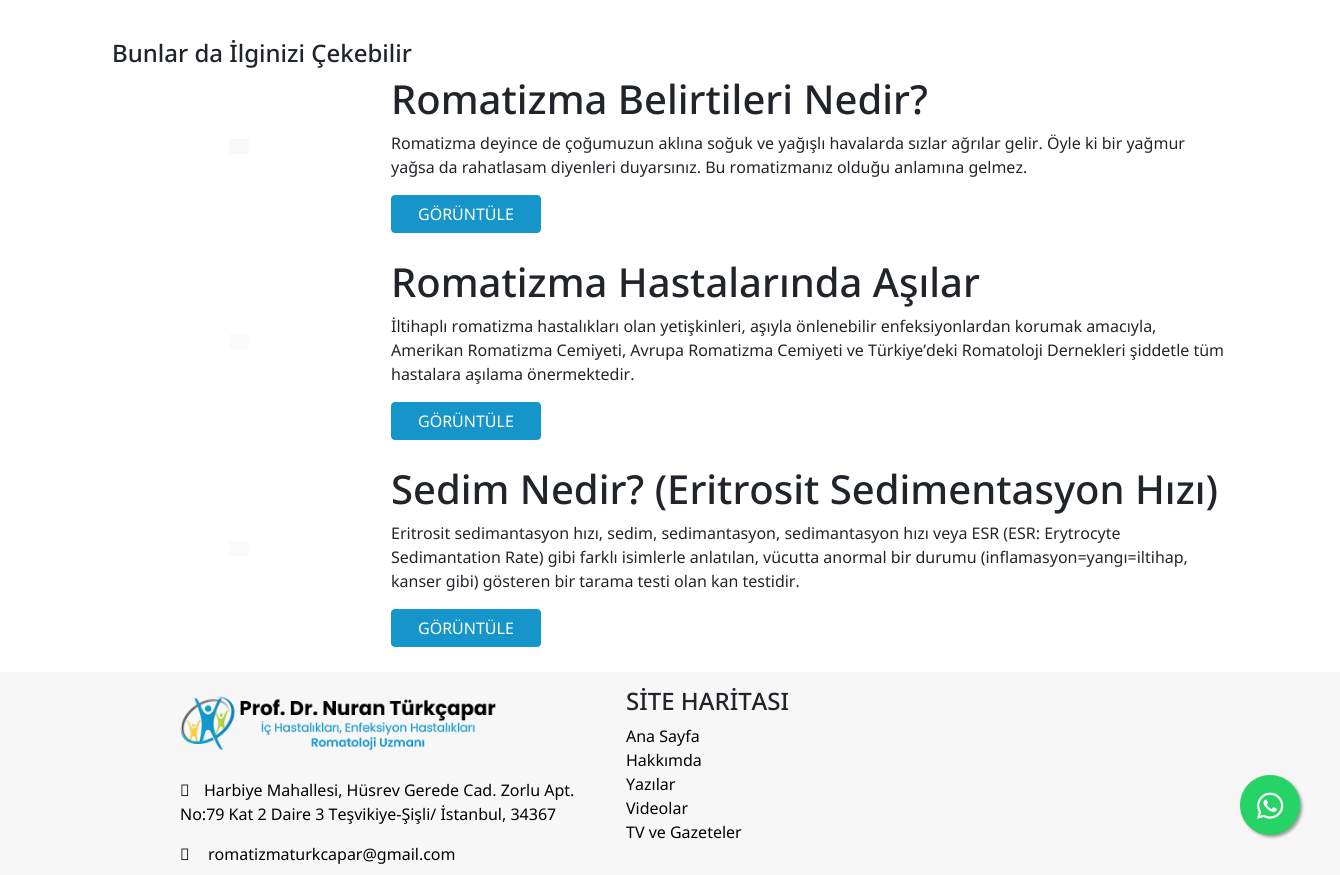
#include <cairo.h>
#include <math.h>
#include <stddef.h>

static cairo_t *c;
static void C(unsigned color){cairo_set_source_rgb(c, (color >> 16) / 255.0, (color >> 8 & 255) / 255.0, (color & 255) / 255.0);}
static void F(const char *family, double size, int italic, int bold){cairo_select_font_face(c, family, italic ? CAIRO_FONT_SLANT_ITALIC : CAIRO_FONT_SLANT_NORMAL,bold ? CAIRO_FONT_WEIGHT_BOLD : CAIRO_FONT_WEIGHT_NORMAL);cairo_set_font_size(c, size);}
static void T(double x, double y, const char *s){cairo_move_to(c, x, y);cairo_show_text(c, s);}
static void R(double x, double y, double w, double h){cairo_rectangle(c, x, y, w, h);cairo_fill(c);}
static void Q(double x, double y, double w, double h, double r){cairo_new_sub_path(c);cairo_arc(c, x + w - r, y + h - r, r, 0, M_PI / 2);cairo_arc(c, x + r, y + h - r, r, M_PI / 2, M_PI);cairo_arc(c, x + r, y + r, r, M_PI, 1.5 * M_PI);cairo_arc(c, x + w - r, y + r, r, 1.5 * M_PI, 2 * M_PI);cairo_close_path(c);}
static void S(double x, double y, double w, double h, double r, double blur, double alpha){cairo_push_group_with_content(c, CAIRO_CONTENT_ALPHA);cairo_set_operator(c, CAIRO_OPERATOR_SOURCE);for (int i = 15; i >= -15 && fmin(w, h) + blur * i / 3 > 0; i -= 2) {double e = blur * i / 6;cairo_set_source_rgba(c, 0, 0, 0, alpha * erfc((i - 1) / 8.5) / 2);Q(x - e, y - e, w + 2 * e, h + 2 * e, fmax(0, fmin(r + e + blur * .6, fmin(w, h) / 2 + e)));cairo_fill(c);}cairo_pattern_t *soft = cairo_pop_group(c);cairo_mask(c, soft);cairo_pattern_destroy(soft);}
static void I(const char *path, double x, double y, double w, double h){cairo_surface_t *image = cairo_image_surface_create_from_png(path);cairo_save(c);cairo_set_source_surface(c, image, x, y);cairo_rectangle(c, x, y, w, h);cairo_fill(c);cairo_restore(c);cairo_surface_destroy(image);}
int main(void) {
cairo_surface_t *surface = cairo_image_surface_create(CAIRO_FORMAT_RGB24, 1340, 875);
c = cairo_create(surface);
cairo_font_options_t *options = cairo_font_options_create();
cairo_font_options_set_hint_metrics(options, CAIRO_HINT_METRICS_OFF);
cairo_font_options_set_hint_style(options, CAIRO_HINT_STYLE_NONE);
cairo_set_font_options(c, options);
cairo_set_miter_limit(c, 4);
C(0xffffff);
cairo_paint(c);
F("Noto Sans Medium",24,0,0);
C(0x212529);
T(112,62,"Bunlar da İlginizi Çekebilir");
I("1.png",229,139,20,15);
F("Noto Sans Medium",40,0,0);
T(391,114,"Romatizma Belirtileri Nedir?");
F("Noto Sans",16,0,0);
T(391,149,"Romatizma deyince de çoğumuzun aklına soğuk ve yağışlı havalarda sızlar ağrılar gelir. Öyle ki bir yağmur");
T(391,173,"yağsa da rahatlasam diyenleri duyarsınız. Bu romatizmanız olduğu anlamına gelmez.");
C(0x1695ca);
Q(391,195,150,38,4);
cairo_fill(c);
C(0xffffff);
T(418,220,"GÖRÜNTÜLE");
I("2.png",229,334,20,15);
F("Noto Sans Medium",40,0,0);
C(0x212529);
T(391,297,"Romatizma Hastalarında Aşılar");
F("Noto Sans",16,0,0);
T(391,332,"İltihaplı romatizma hastalıkları olan yetişkinleri, aşıyla önlenebilir enfeksiyonlardan korumak amacıyla,");
T(391,356,"Amerikan Romatizma Cemiyeti, Avrupa Romatizma Cemiyeti ve Türkiye’deki Romatoloji Dernekleri şiddetle tüm");
T(391,380,"hastalara aşılama önermektedir.");
C(0x1695ca);
Q(391,402,150,38,4);
cairo_fill(c);
C(0xffffff);
T(418,427,"GÖRÜNTÜLE");
I("3.png",229,541,20,15);
F("Noto Sans Medium",40,0,0);
C(0x212529);
T(391,504,"Sedim Nedir? (Eritrosit Sedimentasyon Hızı)");
F("Noto Sans",16,0,0);
T(391,539,"Eritrosit sedimantasyon hızı, sedim, sedimantasyon, sedimantasyon hızı veya ESR (ESR: Erytrocyte");
T(391,563,"Sedimantation Rate) gibi farklı isimlerle anlatılan, vücutta anormal bir durumu (inflamasyon=yangı=iltihap,");
T(391,587,"kanser gibi) gösteren bir tarama testi olan kan testidir.");
C(0x1695ca);
Q(391,609,150,38,4);
cairo_fill(c);
C(0xffffff);
T(418,634,"GÖRÜNTÜLE");
C(0xf7f7f7);
R(0,672,1340,203);
I("4.png",180,696,316,55);
I("5.png",181,784,8,12);
C(0x000000);
T(204,796,"Harbiye Mahallesi, Hüsrev Gerede Cad. Zorlu Apt.");
T(180,820,"No:79 Kat 2 Daire 3 Teşvikiye-Şişli/ İstanbul, 34367");
I("5.png",181,848,8,12);
T(208,860,"romatizmaturkcapar@gmail.com");
F("Noto Sans Medium",24,0,0);
C(0x212529);
T(626,710,"SİTE HARİTASI");
F("Noto Sans",16,0,0);
C(0x000000);
T(626,742,"Ana Sayfa");
T(626,766,"Hakkımda");
T(626,790,"Yazılar");
T(626,814,"Videolar");
T(626,838,"TV ve Gazeteler");
C(0x999999);
S(1242,777,60,60,30,1.5,1);
C(0x25d366);
cairo_arc(c,1270,805,30,0,2 * M_PI);
cairo_fill(c);
I("6.png",1257,792,27,27);
cairo_surface_write_to_png(surface, "o.png");
cairo_font_options_destroy(options);
cairo_destroy(c);
cairo_surface_destroy(surface);
return 0;
}
